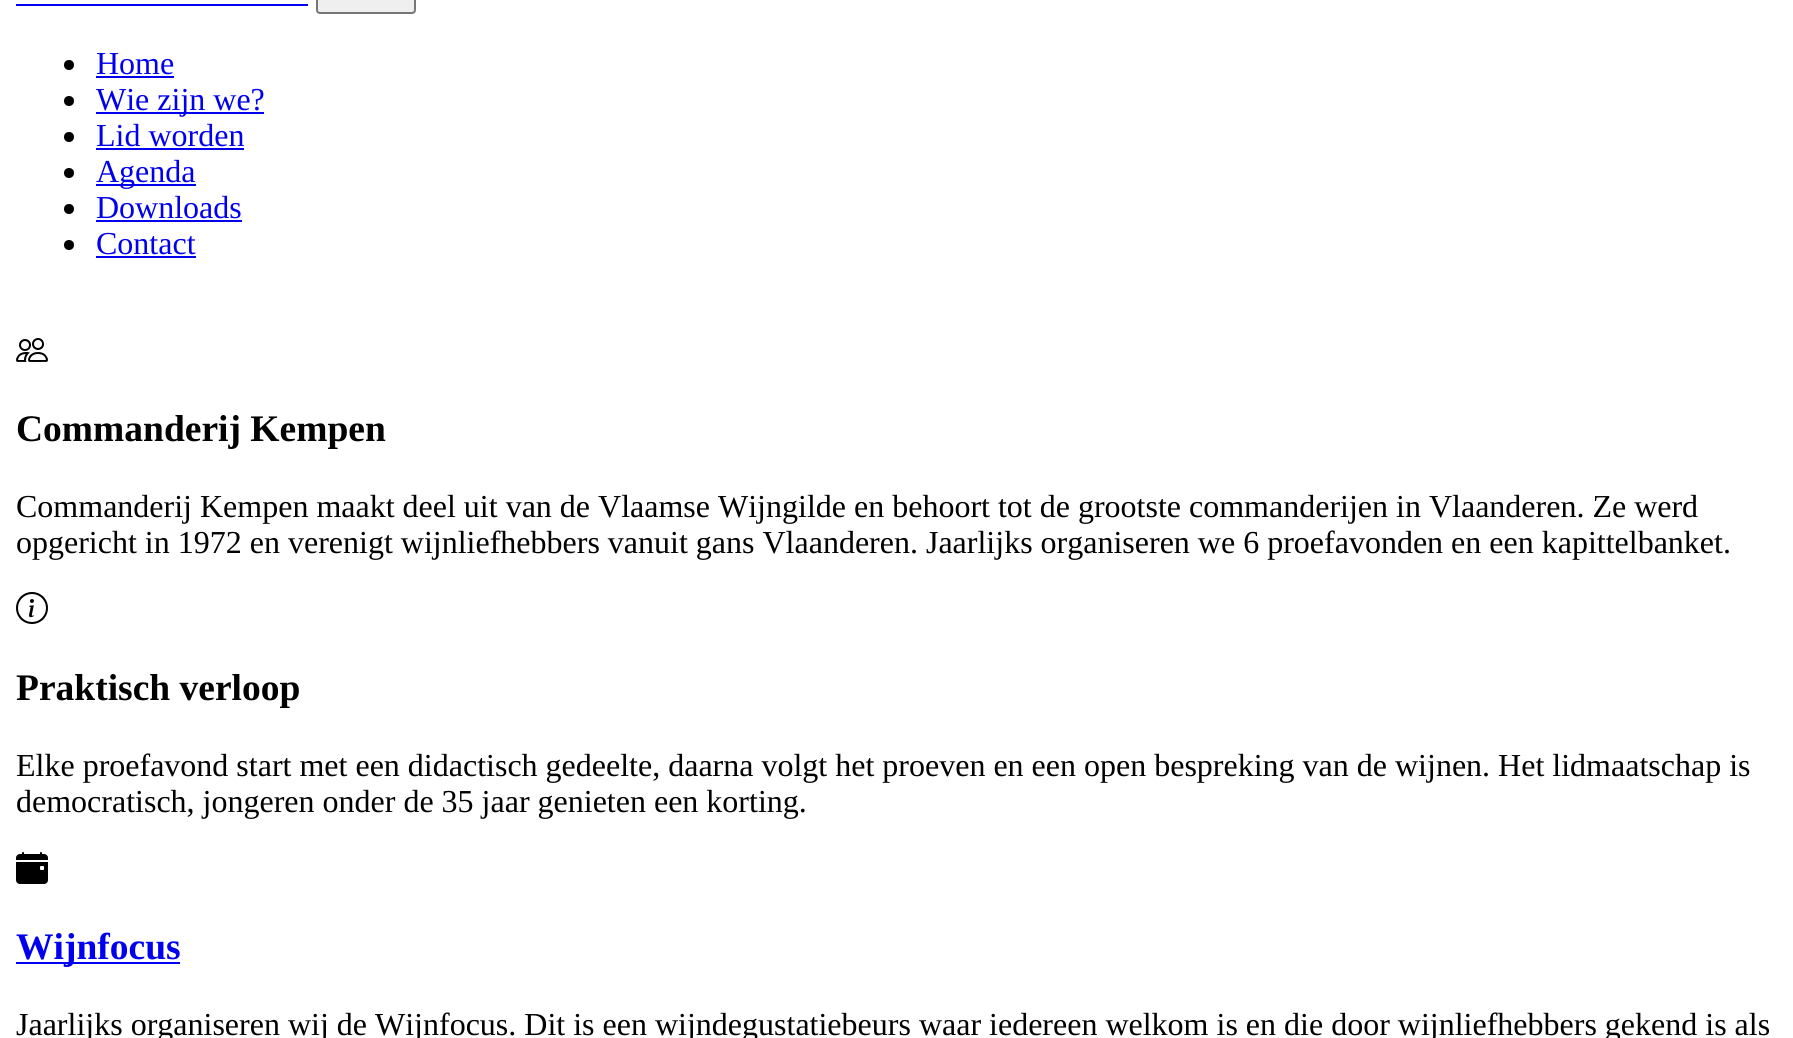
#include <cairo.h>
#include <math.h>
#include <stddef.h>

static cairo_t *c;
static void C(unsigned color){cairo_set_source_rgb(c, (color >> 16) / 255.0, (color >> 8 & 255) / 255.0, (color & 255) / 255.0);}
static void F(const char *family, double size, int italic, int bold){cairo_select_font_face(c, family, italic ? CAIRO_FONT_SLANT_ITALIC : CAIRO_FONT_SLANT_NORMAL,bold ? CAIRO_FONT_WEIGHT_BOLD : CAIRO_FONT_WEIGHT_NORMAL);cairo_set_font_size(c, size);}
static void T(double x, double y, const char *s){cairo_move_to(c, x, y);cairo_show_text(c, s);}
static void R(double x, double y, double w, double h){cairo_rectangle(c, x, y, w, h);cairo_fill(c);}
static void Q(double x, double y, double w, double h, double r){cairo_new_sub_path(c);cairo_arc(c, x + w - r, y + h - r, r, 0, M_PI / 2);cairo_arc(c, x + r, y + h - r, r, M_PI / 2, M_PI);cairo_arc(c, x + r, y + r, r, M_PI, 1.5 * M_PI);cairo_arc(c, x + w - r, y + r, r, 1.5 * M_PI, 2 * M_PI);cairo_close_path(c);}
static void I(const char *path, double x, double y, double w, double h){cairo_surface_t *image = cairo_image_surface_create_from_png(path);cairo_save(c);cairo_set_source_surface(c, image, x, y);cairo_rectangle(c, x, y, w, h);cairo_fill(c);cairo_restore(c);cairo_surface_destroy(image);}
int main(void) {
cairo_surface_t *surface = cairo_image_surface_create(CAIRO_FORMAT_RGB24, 1793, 1038);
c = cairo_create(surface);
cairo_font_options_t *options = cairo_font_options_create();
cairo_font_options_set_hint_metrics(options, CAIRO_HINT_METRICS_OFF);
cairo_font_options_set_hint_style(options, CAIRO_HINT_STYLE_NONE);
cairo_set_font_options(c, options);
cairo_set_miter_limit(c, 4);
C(0xffffff);
cairo_paint(c);
C(0x0000ee);
R(16,4,292,2);
C(0xefefef);
Q(317,-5,98,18,3);
cairo_fill_preserve(c);
C(0x767676);
cairo_stroke(c);
C(0x000000);
cairo_arc(c,69,65,5,0,2 * M_PI);
cairo_fill(c);
F("Liberation Serif",32,0,0);
C(0x0000ee);
T(96,74,"Home");
R(96,76,78,2);
C(0x000000);
cairo_new_path(c);
cairo_arc(c,69,101,5,0,2 * M_PI);
cairo_fill(c);
C(0x0000ee);
R(96,112,168,2);
T(96,110,"Wie zijn we?");
C(0x000000);
cairo_new_path(c);
cairo_arc(c,69,137,5,0,2 * M_PI);
cairo_fill(c);
C(0x0000ee);
T(96,146,"Lid worden");
R(96,148,148,2);
C(0x000000);
cairo_new_path(c);
cairo_arc(c,69,173,5,0,2 * M_PI);
cairo_fill(c);
C(0x0000ee);
R(96,184,100,2);
T(96,182,"Agenda");
C(0x000000);
cairo_new_path(c);
cairo_arc(c,69,209,5,0,2 * M_PI);
cairo_fill(c);
C(0x0000ee);
T(96,218,"Downloads");
R(96,220,146,2);
C(0x000000);
cairo_new_path(c);
cairo_arc(c,69,245,5,0,2 * M_PI);
cairo_fill(c);
C(0x0000ee);
T(96,254,"Contact");
R(96,256,100,2);
I("1.png",16,338,32,24);
F("Liberation Serif",37.5,0,1);
C(0x000000);
T(16,441,"Commanderij Kempen");
F("Liberation Serif",32,0,0);
T(16,517,"Commanderij Kempen maakt deel uit van de Vlaamse Wijngilde en behoort tot de grootste commanderijen in Vlaanderen. Ze werd");
T(16,553,"opgericht in 1972 en verenigt wijnliefhebbers vanuit gans Vlaanderen. Jaarlijks organiseren we 6 proefavonden en een kapittelbanket.");
I("2.png",16,592,32,32);
F("Liberation Serif",37.5,0,1);
T(16,700,"Praktisch verloop");
F("Liberation Serif",32,0,0);
T(16,776,"Elke proefavond start met een didactisch gedeelte, daarna volgt het proeven en een open bespreking van de wijnen. Het lidmaatschap is");
T(16,812,"democratisch, jongeren onder de 35 jaar genieten een korting.");
I("3.png",16,852,32,32);
C(0x0000ee);
R(16,962,164,2);
F("Liberation Serif",37.5,0,1);
T(16,959,"Wijnfocus");
F("Liberation Serif",32,0,0);
C(0x000000);
T(16,1035,"Jaarlijks organiseren wij de Wijnfocus. Dit is een wijndegustatiebeurs waar iedereen welkom is en die door wijnliefhebbers gekend is als");
cairo_surface_write_to_png(surface, "o.png");
cairo_font_options_destroy(options);
cairo_destroy(c);
cairo_surface_destroy(surface);
return 0;
}
